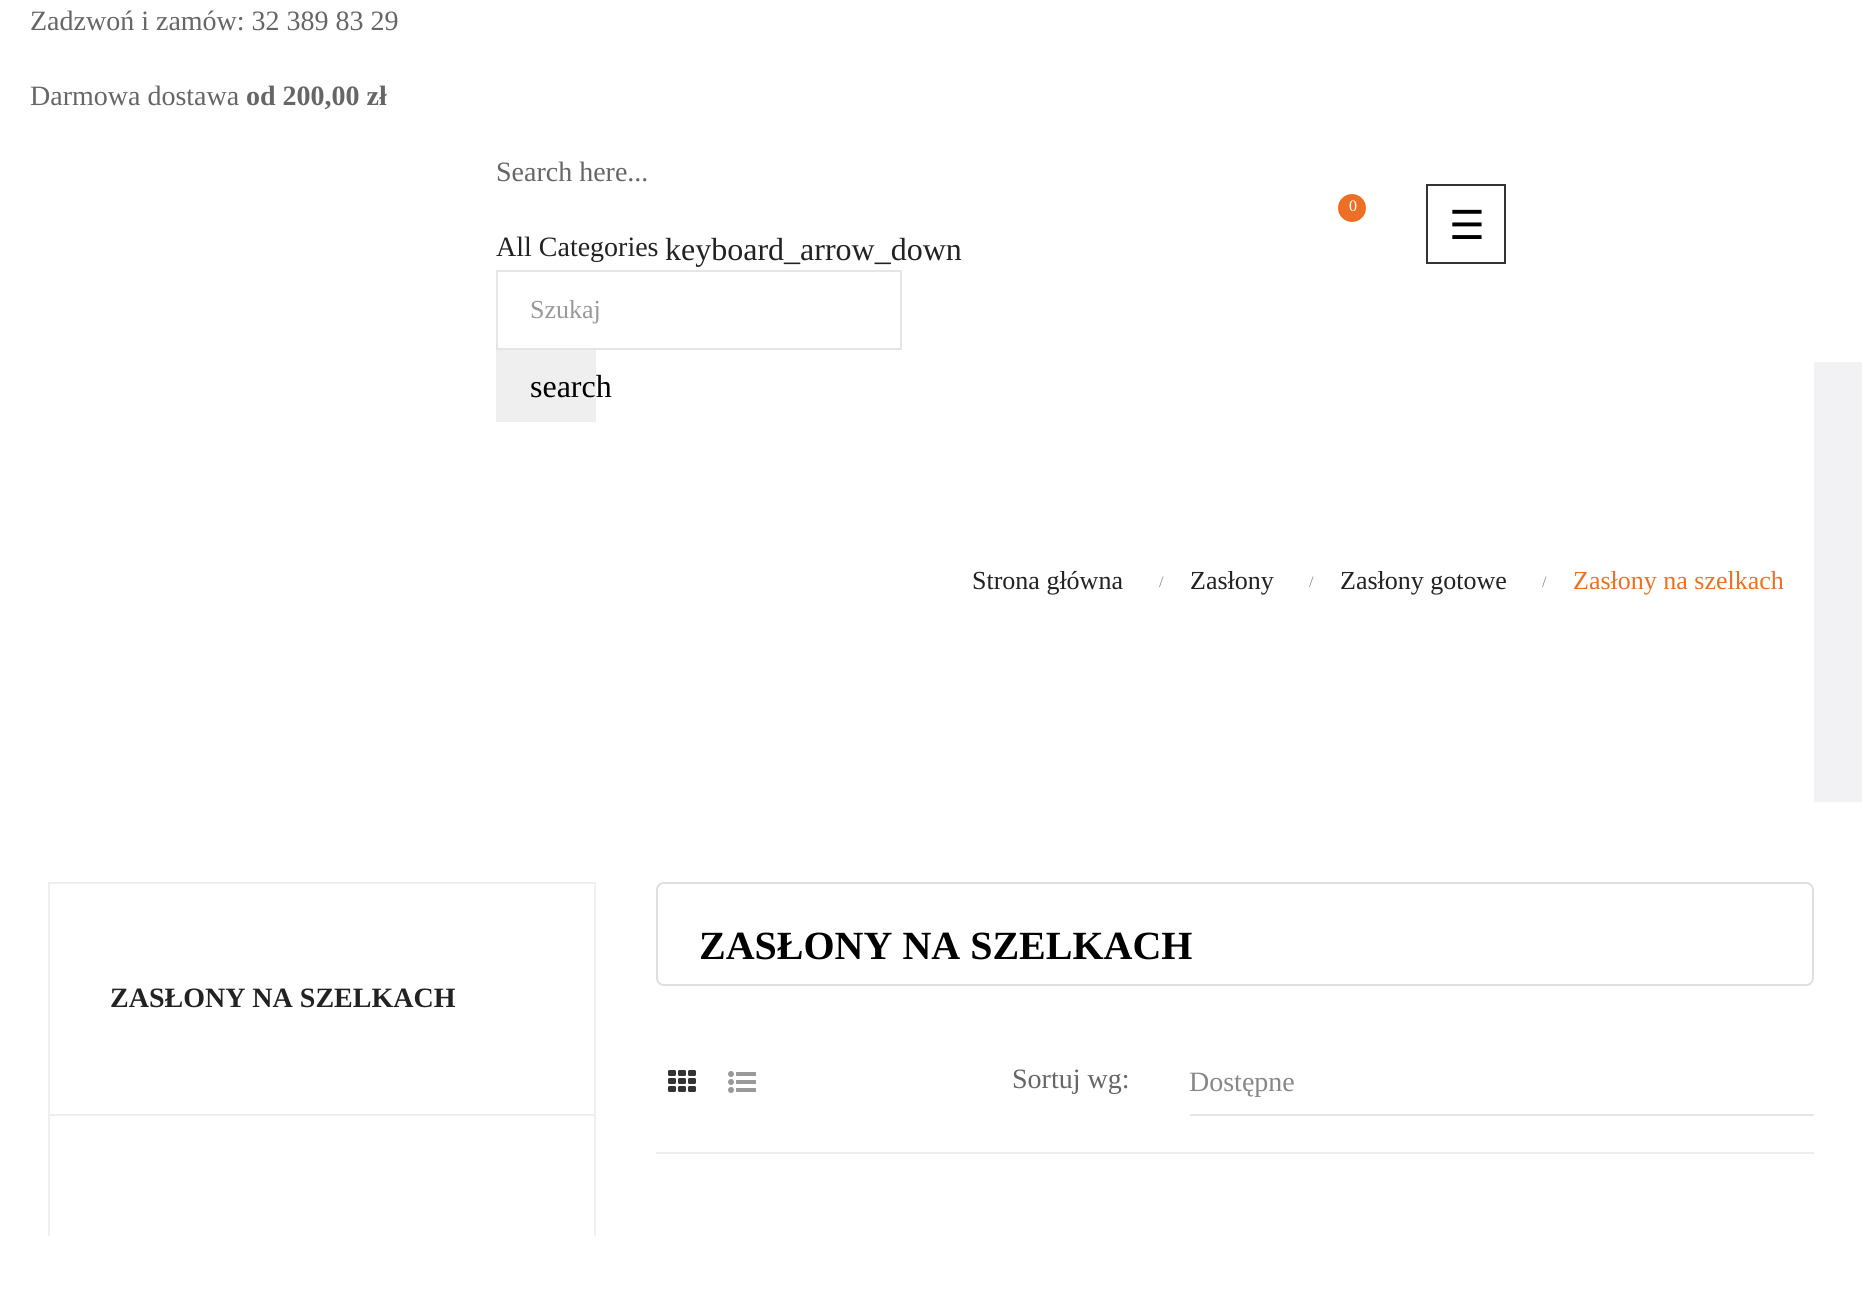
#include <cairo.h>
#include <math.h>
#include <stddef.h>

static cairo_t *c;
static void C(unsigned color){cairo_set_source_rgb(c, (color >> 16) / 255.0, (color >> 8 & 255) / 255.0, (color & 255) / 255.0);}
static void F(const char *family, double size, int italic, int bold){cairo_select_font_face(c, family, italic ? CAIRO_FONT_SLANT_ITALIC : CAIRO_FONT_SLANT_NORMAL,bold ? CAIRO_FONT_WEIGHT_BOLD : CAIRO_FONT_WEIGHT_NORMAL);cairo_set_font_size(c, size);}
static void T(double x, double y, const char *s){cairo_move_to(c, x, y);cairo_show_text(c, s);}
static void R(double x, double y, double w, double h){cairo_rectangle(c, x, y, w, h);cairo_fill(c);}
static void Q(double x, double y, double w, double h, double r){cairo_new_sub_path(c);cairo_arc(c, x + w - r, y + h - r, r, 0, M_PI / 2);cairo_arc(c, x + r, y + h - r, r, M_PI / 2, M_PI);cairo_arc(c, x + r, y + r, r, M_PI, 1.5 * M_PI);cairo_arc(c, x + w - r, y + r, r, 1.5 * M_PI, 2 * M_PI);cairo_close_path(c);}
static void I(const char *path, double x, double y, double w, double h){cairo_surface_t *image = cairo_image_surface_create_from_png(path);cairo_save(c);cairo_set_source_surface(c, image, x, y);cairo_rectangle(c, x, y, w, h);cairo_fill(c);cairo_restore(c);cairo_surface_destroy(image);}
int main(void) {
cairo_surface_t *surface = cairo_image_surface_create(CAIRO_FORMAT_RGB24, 1862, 1314);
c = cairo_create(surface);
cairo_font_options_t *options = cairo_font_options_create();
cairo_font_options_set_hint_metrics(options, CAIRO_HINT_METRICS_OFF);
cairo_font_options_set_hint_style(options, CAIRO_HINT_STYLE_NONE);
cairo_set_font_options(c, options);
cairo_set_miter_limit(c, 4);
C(0xffffff);
cairo_paint(c);
F("Liberation Serif",28,0,0);
C(0x666666);
T(30,30,"Zadzwoń i zamów: 32 389 83 29");
T(30,105,"Darmowa dostawa");
F("Liberation Serif",28,0,1);
T(246,105,"od 200,00 zł");
F("Liberation Serif",28,0,0);
T(496,181,"Search here...");
C(0x222222);
T(496,256,"All Categories");
F("Liberation Serif",32,0,0);
T(665,260,"keyboard_arrow_down");
cairo_rectangle(c,497,271,404,78);
C(0xe5e5e5);
cairo_stroke(c);
F("Liberation Serif",26,0,0);
C(0x999999);
T(530,318,"Szukaj");
C(0xefefef);
R(496,350,100,72);
F("Liberation Serif",32,0,0);
C(0x000000);
T(530,397,"search");
C(0xeb7025);
cairo_new_path(c);
cairo_arc(c,1352,208,14,0,2 * M_PI);
cairo_fill(c);
F("Liberation Serif",16,0,0);
C(0xffffff);
T(1349,211,"0");
cairo_rectangle(c,1427,185,78,78);
C(0x333333);
cairo_stroke(c);
F("DejaVu Sans",40,0,0);
C(0x000000);
T(1449,239,"☰");
F("Liberation Serif",26,0,0);
C(0x222222);
T(972,589,"Strona główna");
F("Liberation Serif",16,0,0);
C(0x888888);
T(1159,587,"/");
F("Liberation Serif",26,0,0);
C(0x222222);
T(1190,589,"Zasłony");
F("Liberation Serif",16,0,0);
C(0x888888);
T(1309,587,"/");
F("Liberation Serif",26,0,0);
C(0x222222);
T(1340,589,"Zasłony gotowe");
F("Liberation Serif",16,0,0);
C(0x888888);
T(1542,587,"/");
F("Liberation Serif",26,0,0);
C(0xeb7025);
T(1573,589,"Zasłony na szelkach");
C(0xf2f2f4);
R(1814,362,48,440);
C(0xefefef);
R(48,882,548,2);
R(594,882,2,232);
R(48,882,2,232);
F("Liberation Serif",28,0,1);
C(0x222222);
T(110,1007,"ZASŁONY NA SZELKACH");
C(0xefefef);
R(48,1114,548,2);
R(594,1114,2,122);
R(48,1114,2,122);
Q(657,883,1156,102,7);
C(0xdfdfdf);
cairo_stroke(c);
F("Liberation Serif",40,0,1);
C(0x000000);
T(699,959,"ZASŁONY NA SZELKACH");
C(0xeeeeee);
R(656,1152,1158,2);
I("1.png",668,1070,28,22);
I("2.png",728,1071,28,22);
F("Liberation Serif",28,0,0);
C(0x666666);
T(1012,1088,"Sortuj wg:");
C(0xe5e5e5);
R(1190,1114,624,2);
C(0x888888);
T(1189,1091,"Dostępne");
cairo_surface_write_to_png(surface, "o.png");
cairo_font_options_destroy(options);
cairo_destroy(c);
cairo_surface_destroy(surface);
return 0;
}
